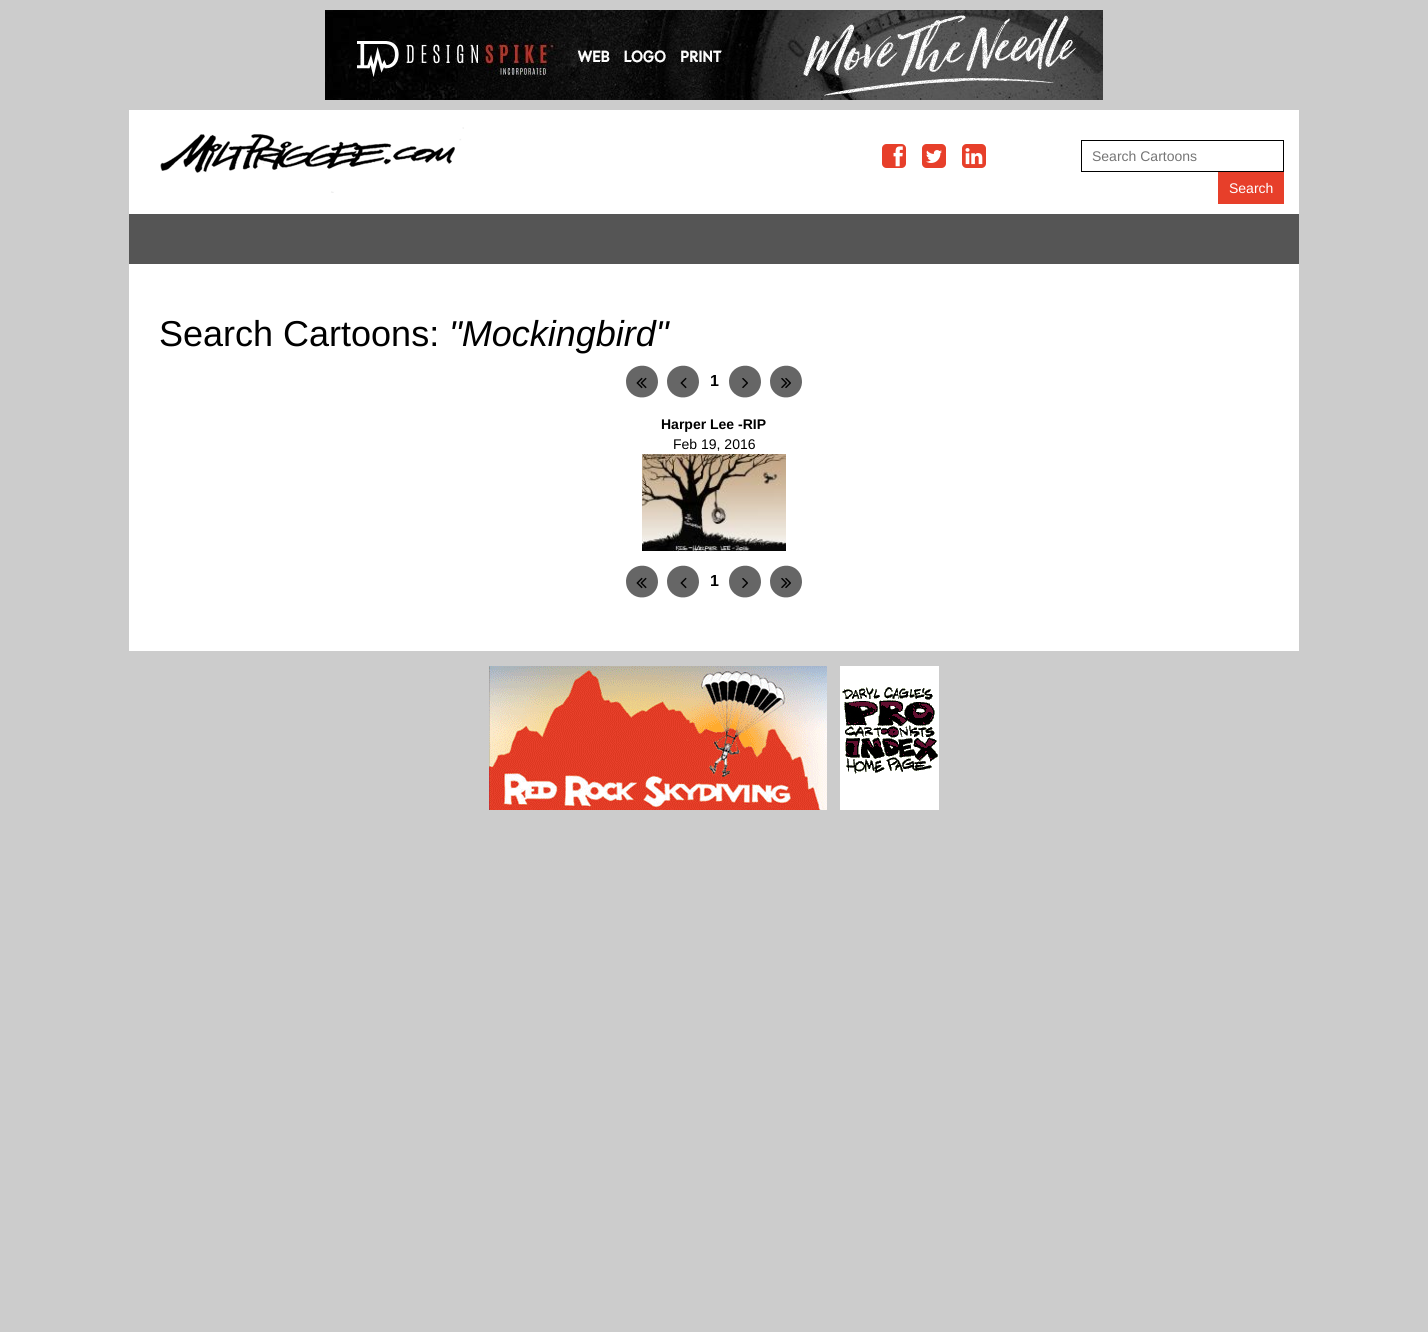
#include <cairo.h>
#include <math.h>
#include <stddef.h>

static cairo_t *c;
static void C(unsigned color){cairo_set_source_rgb(c, (color >> 16) / 255.0, (color >> 8 & 255) / 255.0, (color & 255) / 255.0);}
static void F(const char *family, double size, int italic, int bold){cairo_select_font_face(c, family, italic ? CAIRO_FONT_SLANT_ITALIC : CAIRO_FONT_SLANT_NORMAL,bold ? CAIRO_FONT_WEIGHT_BOLD : CAIRO_FONT_WEIGHT_NORMAL);cairo_set_font_size(c, size);}
static void T(double x, double y, const char *s){cairo_move_to(c, x, y);cairo_show_text(c, s);}
static void R(double x, double y, double w, double h){cairo_rectangle(c, x, y, w, h);cairo_fill(c);}
static void I(const char *path, double x, double y, double w, double h){cairo_surface_t *image = cairo_image_surface_create_from_png(path);cairo_save(c);cairo_set_source_surface(c, image, x, y);cairo_rectangle(c, x, y, w, h);cairo_fill(c);cairo_restore(c);cairo_surface_destroy(image);}
int main(void) {
cairo_surface_t *surface = cairo_image_surface_create(CAIRO_FORMAT_RGB24, 1428, 1332);
c = cairo_create(surface);
cairo_font_options_t *options = cairo_font_options_create();
cairo_font_options_set_hint_metrics(options, CAIRO_HINT_METRICS_OFF);
cairo_font_options_set_hint_style(options, CAIRO_HINT_STYLE_NONE);
cairo_set_font_options(c, options);
cairo_set_miter_limit(c, 4);
C(0xcccccc);
cairo_paint(c);
I("1.png",325,10,778,90);
C(0xffffff);
R(129,110,1170,541);
I("2.png",160,127,304,66);
I("3.png",882,144,24,24);
I("4.png",922,144,24,24);
I("5.png",962,144,24,24);
cairo_rectangle(c,1081.5,140.5,202,31);
C(0x000000);
cairo_set_line_width(c,1);
cairo_stroke(c);
F("Liberation Sans",14,0,0);
C(0x757575);
T(1092,161,"Search Cartoons");
C(0xe73f2a);
R(1218,172,66,32);
C(0xffffff);
T(1229,193,"Search");
C(0x555555);
R(129,214,1170,50);
F("Liberation Sans",36,0,0);
C(0x000000);
T(159,346,"Search Cartoons:");
F("Liberation Sans",36,1,0);
T(449,346,"\"Mockingbird\"");
C(0x666666);
cairo_new_path(c);
cairo_move_to(c,656,373.5);
cairo_curve_to(c,657.5,376.5,658,379.5,658,382.5);
cairo_curve_to(c,657,398.5,636,403,628,389.5);
cairo_curve_to(c,626.5,387,626,384,626,380.5);
cairo_curve_to(c,627,365,648,360,656,373.5);
cairo_close_path(c);
cairo_fill(c);
I("6.png",636,377,11,12);
cairo_new_path(c);
cairo_move_to(c,697,373.5);
cairo_curve_to(c,698.5,376.5,699,379.5,699,382.5);
cairo_curve_to(c,698,398.5,677,403,669,389.5);
cairo_curve_to(c,667.5,387,667,384,667,380.5);
cairo_curve_to(c,668,365,689,360,697,373.5);
cairo_close_path(c);
cairo_fill(c);
I("7.png",680,377,7,12);
F("Liberation Sans",16,0,1);
C(0x000000);
T(710,386,"1");
C(0x666666);
cairo_new_path(c);
cairo_move_to(c,759,373.5);
cairo_curve_to(c,760.5,376.5,761,379.5,761,382.5);
cairo_curve_to(c,760,398.5,739,403,731,389.5);
cairo_curve_to(c,729.5,387,729,384,729,380.5);
cairo_curve_to(c,730,365,751,360,759,373.5);
cairo_close_path(c);
cairo_fill(c);
I("8.png",742,378,6,10);
cairo_new_path(c);
cairo_move_to(c,800,373.5);
cairo_curve_to(c,801.5,376.5,802,379.5,802,382.5);
cairo_curve_to(c,801,398.5,780,403,772,389.5);
cairo_curve_to(c,770.5,387,770,384,770,380.5);
cairo_curve_to(c,771,365,792,360,800,373.5);
cairo_close_path(c);
cairo_fill(c);
I("9.png",781,378,10,10);
F("Liberation Sans",14,0,1);
C(0x000000);
T(661,429,"Harper Lee -RIP");
F("Liberation Sans",14,0,0);
T(673,449,"Feb 19, 2016");
I("10.png",642,454,144,97);
C(0x666666);
cairo_new_path(c);
cairo_move_to(c,656,573.5);
cairo_curve_to(c,657.5,576.5,658,579.5,658,582.5);
cairo_curve_to(c,657,598.5,636,603,628,589.5);
cairo_curve_to(c,626.5,587,626,584,626,580.5);
cairo_curve_to(c,627,565,648,560,656,573.5);
cairo_close_path(c);
cairo_fill(c);
I("6.png",636,577,11,12);
cairo_new_path(c);
cairo_move_to(c,697,573.5);
cairo_curve_to(c,698.5,576.5,699,579.5,699,582.5);
cairo_curve_to(c,698,598.5,677,603,669,589.5);
cairo_curve_to(c,667.5,587,667,584,667,580.5);
cairo_curve_to(c,668,565,689,560,697,573.5);
cairo_close_path(c);
cairo_fill(c);
I("7.png",680,577,7,12);
F("Liberation Sans",16,0,1);
C(0x000000);
T(710,586,"1");
C(0x666666);
cairo_new_path(c);
cairo_move_to(c,759,573.5);
cairo_curve_to(c,760.5,576.5,761,579.5,761,582.5);
cairo_curve_to(c,760,598.5,739,603,731,589.5);
cairo_curve_to(c,729.5,587,729,584,729,580.5);
cairo_curve_to(c,730,565,751,560,759,573.5);
cairo_close_path(c);
cairo_fill(c);
I("8.png",742,578,6,10);
cairo_new_path(c);
cairo_move_to(c,800,573.5);
cairo_curve_to(c,801.5,576.5,802,579.5,802,582.5);
cairo_curve_to(c,801,598.5,780,603,772,589.5);
cairo_curve_to(c,770.5,587,770,584,770,580.5);
cairo_curve_to(c,771,565,792,560,800,573.5);
cairo_close_path(c);
cairo_fill(c);
I("9.png",781,578,10,10);
I("11.png",489,666,338,144);
I("12.png",840,666,99,144);
cairo_surface_write_to_png(surface, "o.png");
cairo_font_options_destroy(options);
cairo_destroy(c);
cairo_surface_destroy(surface);
return 0;
}
